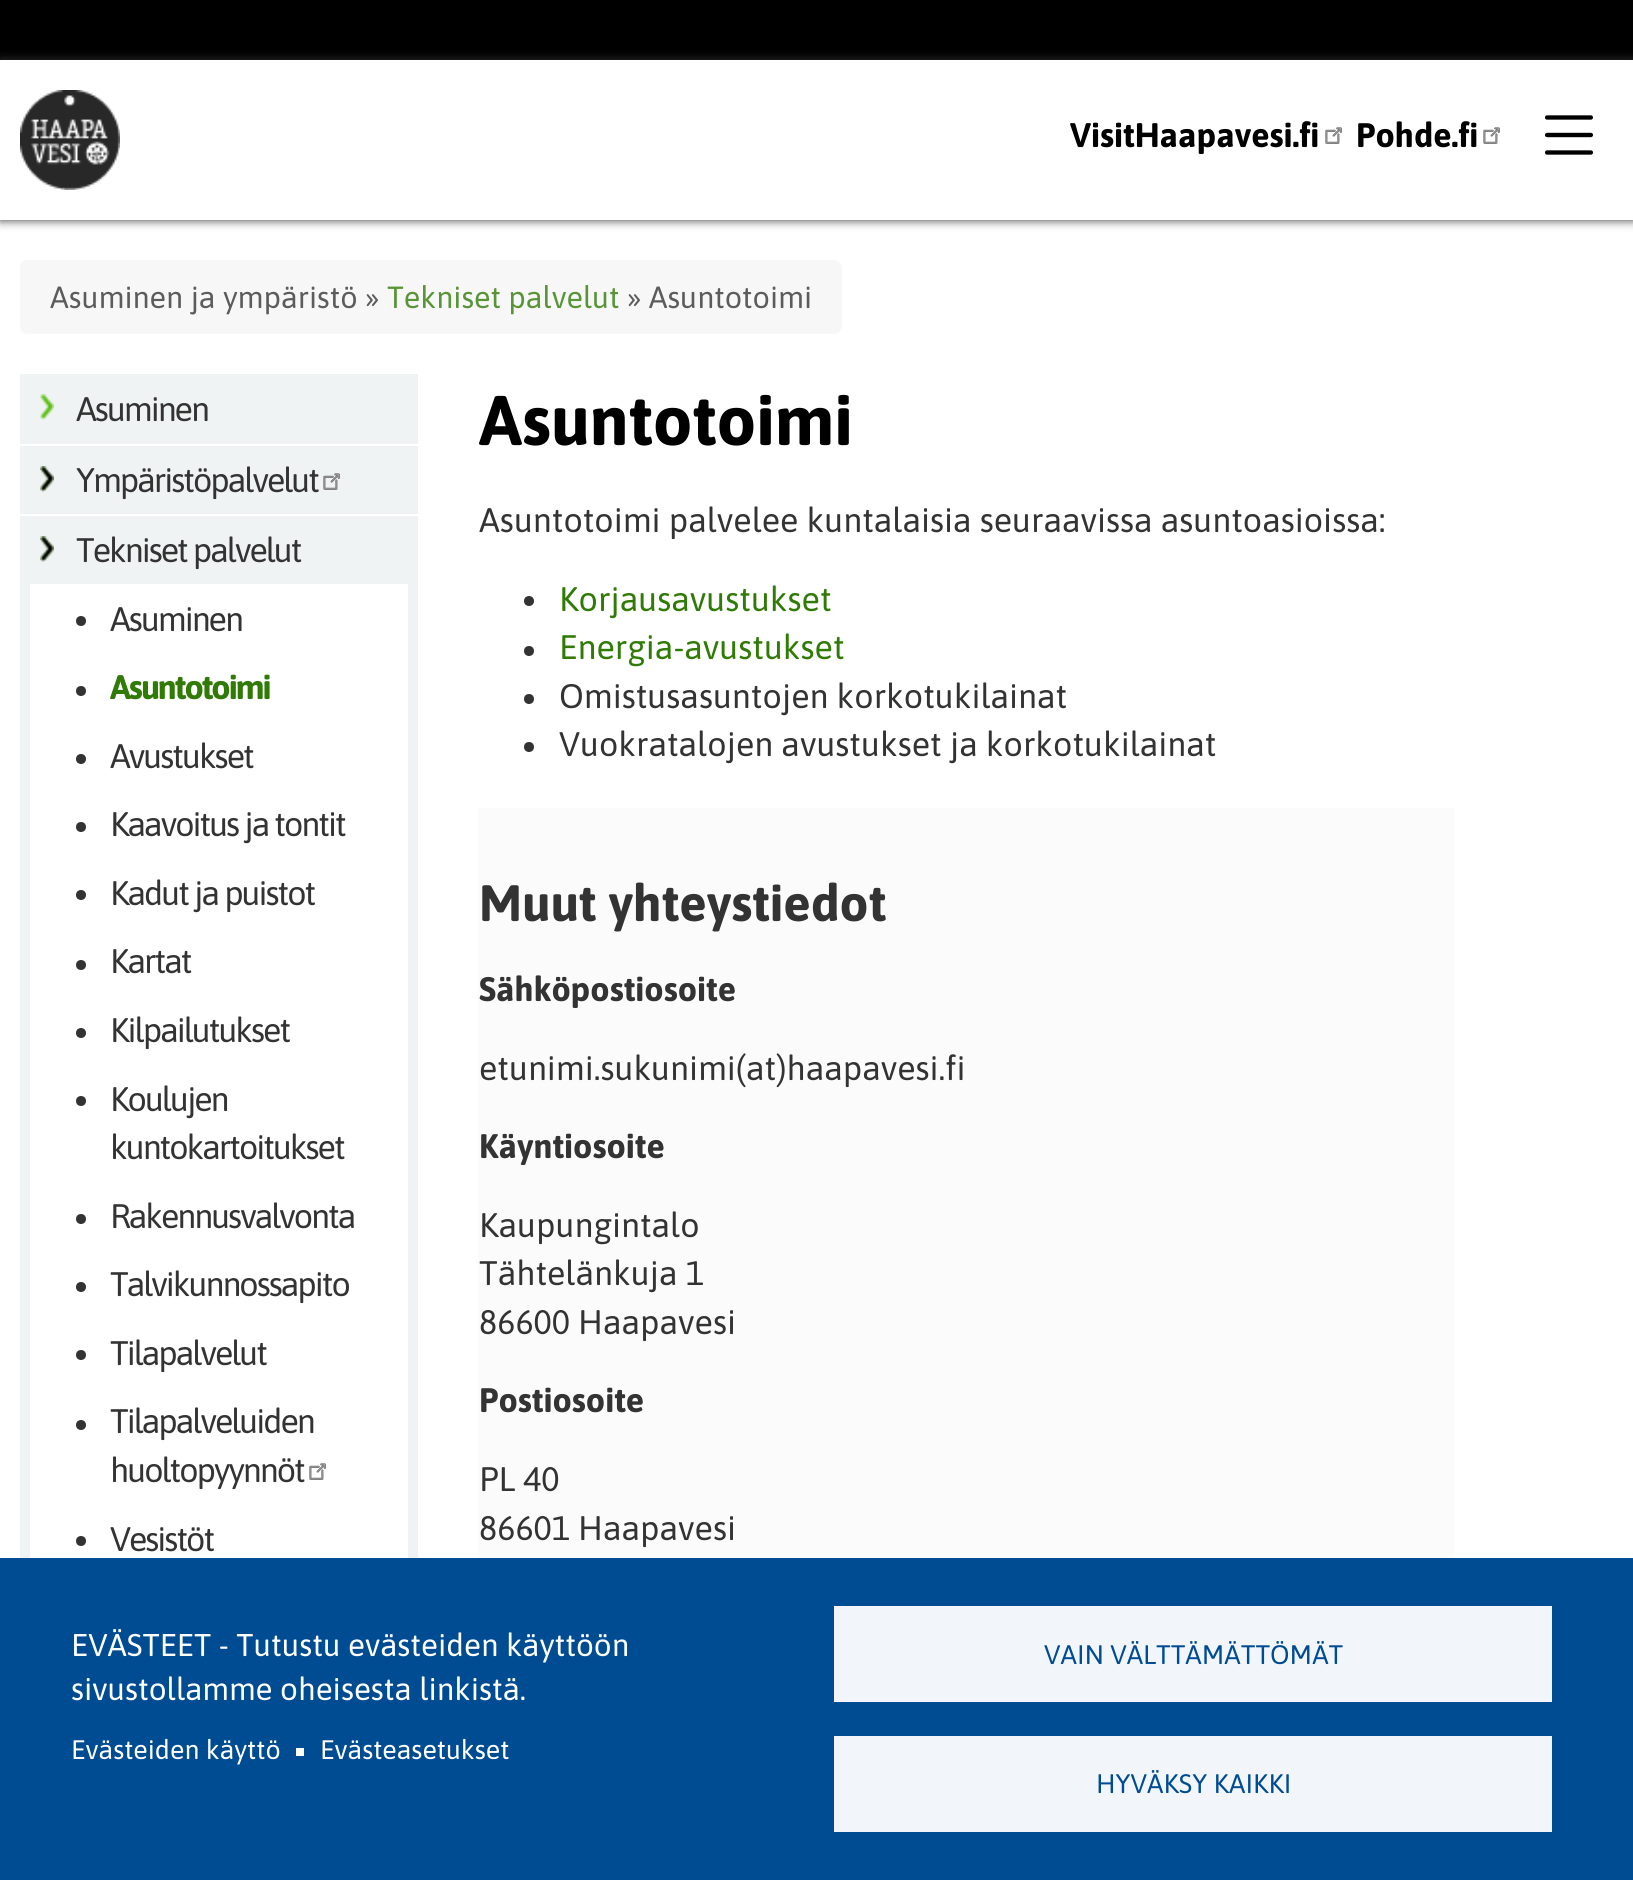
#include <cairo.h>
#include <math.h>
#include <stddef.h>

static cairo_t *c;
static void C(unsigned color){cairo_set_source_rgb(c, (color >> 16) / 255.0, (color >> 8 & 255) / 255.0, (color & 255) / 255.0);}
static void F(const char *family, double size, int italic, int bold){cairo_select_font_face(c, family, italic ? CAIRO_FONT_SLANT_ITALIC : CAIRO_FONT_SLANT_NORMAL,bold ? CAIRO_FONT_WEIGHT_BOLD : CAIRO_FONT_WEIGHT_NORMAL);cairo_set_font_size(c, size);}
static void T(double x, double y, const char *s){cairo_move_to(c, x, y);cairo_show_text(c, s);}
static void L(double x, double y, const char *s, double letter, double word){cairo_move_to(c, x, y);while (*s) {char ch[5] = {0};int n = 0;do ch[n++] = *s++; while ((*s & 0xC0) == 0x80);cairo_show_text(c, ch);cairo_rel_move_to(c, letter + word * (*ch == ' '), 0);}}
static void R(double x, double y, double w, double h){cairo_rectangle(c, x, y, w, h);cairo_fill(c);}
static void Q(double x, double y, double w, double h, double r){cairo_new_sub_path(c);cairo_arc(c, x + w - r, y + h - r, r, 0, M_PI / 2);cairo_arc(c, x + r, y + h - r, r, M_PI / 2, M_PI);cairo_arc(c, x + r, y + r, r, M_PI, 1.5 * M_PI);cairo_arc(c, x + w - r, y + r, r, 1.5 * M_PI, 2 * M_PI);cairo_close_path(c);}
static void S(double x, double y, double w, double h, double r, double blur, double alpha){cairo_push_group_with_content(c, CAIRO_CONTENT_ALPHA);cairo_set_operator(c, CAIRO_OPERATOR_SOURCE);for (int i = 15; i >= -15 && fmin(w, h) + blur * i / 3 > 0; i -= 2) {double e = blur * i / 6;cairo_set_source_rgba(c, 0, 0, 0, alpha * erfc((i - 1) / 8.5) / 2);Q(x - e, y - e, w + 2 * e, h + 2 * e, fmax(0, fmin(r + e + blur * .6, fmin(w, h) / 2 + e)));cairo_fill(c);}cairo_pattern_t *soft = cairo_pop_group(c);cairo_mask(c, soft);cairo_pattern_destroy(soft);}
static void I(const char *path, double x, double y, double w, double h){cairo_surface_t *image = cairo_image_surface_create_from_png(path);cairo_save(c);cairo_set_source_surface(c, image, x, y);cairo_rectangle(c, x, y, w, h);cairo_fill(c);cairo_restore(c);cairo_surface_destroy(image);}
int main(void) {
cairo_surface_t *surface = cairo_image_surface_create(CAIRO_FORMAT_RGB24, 1633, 1880);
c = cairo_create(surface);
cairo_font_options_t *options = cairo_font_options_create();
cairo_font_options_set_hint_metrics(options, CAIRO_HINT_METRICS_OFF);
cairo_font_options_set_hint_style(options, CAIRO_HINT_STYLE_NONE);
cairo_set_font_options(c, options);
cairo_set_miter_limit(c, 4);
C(0xffffff);
cairo_paint(c);
C(0x000000);
R(0,0,1633,60);
C(0x333333);
S(0,60,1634,160,0,5,1);
C(0xffffff);
R(0,60,1633,160);
I("1.png",20,90,100,100);
F("Asap",34,0,1);
C(0x000000);
T(1070,147,"VisitHaapavesi.fi");
I("2.png",1325,127,17,17);
T(1356,147,"Pohde.fi");
I("2.png",1483,127,17,17);
I("3.png",1545,115,48,40);
C(0xf7f7f7);
Q(20,260,822,74,8);
cairo_fill(c);
F("Asap",30.6,0,0);
C(0x5c5c5c);
T(50,308,"Asuminen ja ympäristö »");
C(0x599538);
T(387,308,"Tekniset palvelut");
C(0x5c5c5c);
T(627,308,"» Asuntotoimi");
C(0xf0f3f3);
R(20,374,398,70);
I("4.png",40,394,14,26);
F("Asap",34,0,0);
C(0x333333);
L(76,421,"Asuminen",-2,0);
C(0xf0f3f3);
R(20,446,398,68);
I("5.png",40,466,14,26);
C(0x333333);
L(76,492,"Ympäristöpalvelut",-2,0);
I("6.png",323,473,17,17);
C(0xf0f3f3);
R(20,516,398,1042);
I("5.png",40,536,14,26);
C(0x333333);
L(76,562,"Tekniset palvelut",-2,0);
C(0xffffff);
R(30,584,378,974);
C(0x333333);
cairo_new_path(c);
cairo_arc(c,81,621,5,0,2 * M_PI);
cairo_fill(c);
L(110,631,"Asuminen",-2,0);
cairo_new_path(c);
cairo_arc(c,81,691,5,0,2 * M_PI);
cairo_fill(c);
F("Asap",34,0,1);
C(0x307a06);
L(110,699,"Asuntotoimi",-2,0);
C(0x333333);
cairo_new_path(c);
cairo_arc(c,81,759,5,0,2 * M_PI);
cairo_fill(c);
F("Asap",34,0,0);
L(110,768,"Avustukset",-2,0);
cairo_new_path(c);
cairo_arc(c,81,827,5,0,2 * M_PI);
cairo_fill(c);
L(110,836,"Kaavoitus ja tontit",-2,0);
cairo_new_path(c);
cairo_arc(c,81,895,5,0,2 * M_PI);
cairo_fill(c);
L(110,905,"Kadut ja puistot",-2,0);
cairo_new_path(c);
cairo_arc(c,81,965,5,0,2 * M_PI);
cairo_fill(c);
L(110,973,"Kartat",-2,0);
cairo_new_path(c);
cairo_arc(c,81,1033,5,0,2 * M_PI);
cairo_fill(c);
L(110,1042,"Kilpailutukset",-2,0);
cairo_new_path(c);
cairo_arc(c,81,1101,5,0,2 * M_PI);
cairo_fill(c);
L(110,1111,"Koulujen",-2,0);
L(110,1159,"kuntokartoitukset",-2,0);
cairo_new_path(c);
cairo_arc(c,81,1219,5,0,2 * M_PI);
cairo_fill(c);
L(110,1228,"Rakennusvalvonta",-2,0);
cairo_new_path(c);
cairo_arc(c,81,1287,5,0,2 * M_PI);
cairo_fill(c);
L(110,1296,"Talvikunnossapito",-2,0);
cairo_new_path(c);
cairo_arc(c,81,1355,5,0,2 * M_PI);
cairo_fill(c);
L(110,1365,"Tilapalvelut",-2,0);
cairo_new_path(c);
cairo_arc(c,81,1425,5,0,2 * M_PI);
cairo_fill(c);
L(110,1433,"Tilapalveluiden",-2,0);
L(110,1482,"huoltopyynnöt",-2,0);
I("2.png",309,1463,17,17);
cairo_arc(c,81,1541,5,0,2 * M_PI);
cairo_fill(c);
L(110,1551,"Vesistöt",-2,0);
F("Asap",70,0,1);
C(0x000000);
T(479,445,"Asuntotoimi");
F("Asap",34,0,0);
C(0x333333);
T(479,532,"Asuntotoimi palvelee kuntalaisia seuraavissa asuntoasioissa:");
cairo_new_path(c);
cairo_arc(c,529,601,5,0,2 * M_PI);
cairo_fill(c);
C(0x307a06);
T(559,611,"Korjausavustukset");
C(0x333333);
cairo_new_path(c);
cairo_arc(c,529,651,5,0,2 * M_PI);
cairo_fill(c);
C(0x307a06);
T(559,659,"Energia-avustukset");
C(0x333333);
cairo_new_path(c);
cairo_arc(c,529,699,5,0,2 * M_PI);
cairo_fill(c);
T(559,708,"Omistusasuntojen korkotukilainat");
cairo_new_path(c);
cairo_arc(c,529,747,5,0,2 * M_PI);
cairo_fill(c);
T(559,756,"Vuokratalojen avustukset ja korkotukilainat");
C(0xfbfbfb);
R(478,808,976,750);
F("Asap",51,0,1);
C(0x333333);
T(479,921,"Muut yhteystiedot");
F("Asap",34,0,1);
T(479,1001,"Sähköpostiosoite");
F("Asap",34,0,0);
T(479,1080,"etunimi.sukunimi(at)haapavesi.fi");
F("Asap",34,0,1);
T(479,1158,"Käyntiosoite");
F("Asap",34,0,0);
T(479,1237,"Kaupungintalo");
T(479,1285,"Tähtelänkuja 1");
T(479,1334,"86600 Haapavesi");
F("Asap",34,0,1);
T(479,1412,"Postiosoite");
F("Asap",34,0,0);
T(479,1491,"PL 40");
T(479,1540,"86601 Haapavesi");
C(0x004c93);
R(0,1558,1633,322);
F("Asap",31.4,0,0);
C(0xffffff);
T(71,1656,"EVÄSTEET - Tutustu evästeiden käyttöön");
T(71,1700,"sivustollamme oheisesta linkistä.");
F("Asap",26.75,0,0);
T(71,1759,"Evästeiden käyttö");
R(296,1748,8,8);
T(320,1759,"Evästeasetukset");
C(0xf2f6fa);
R(834,1606,718,96);
C(0x004c93);
T(1044,1664,"VAIN VÄLTTÄMÄTTÖMÄT");
C(0xf2f6fa);
R(834,1736,718,96);
C(0x004c93);
T(1096,1793,"HYVÄKSY KAIKKI");
cairo_surface_write_to_png(surface, "o.png");
cairo_font_options_destroy(options);
cairo_destroy(c);
cairo_surface_destroy(surface);
return 0;
}
